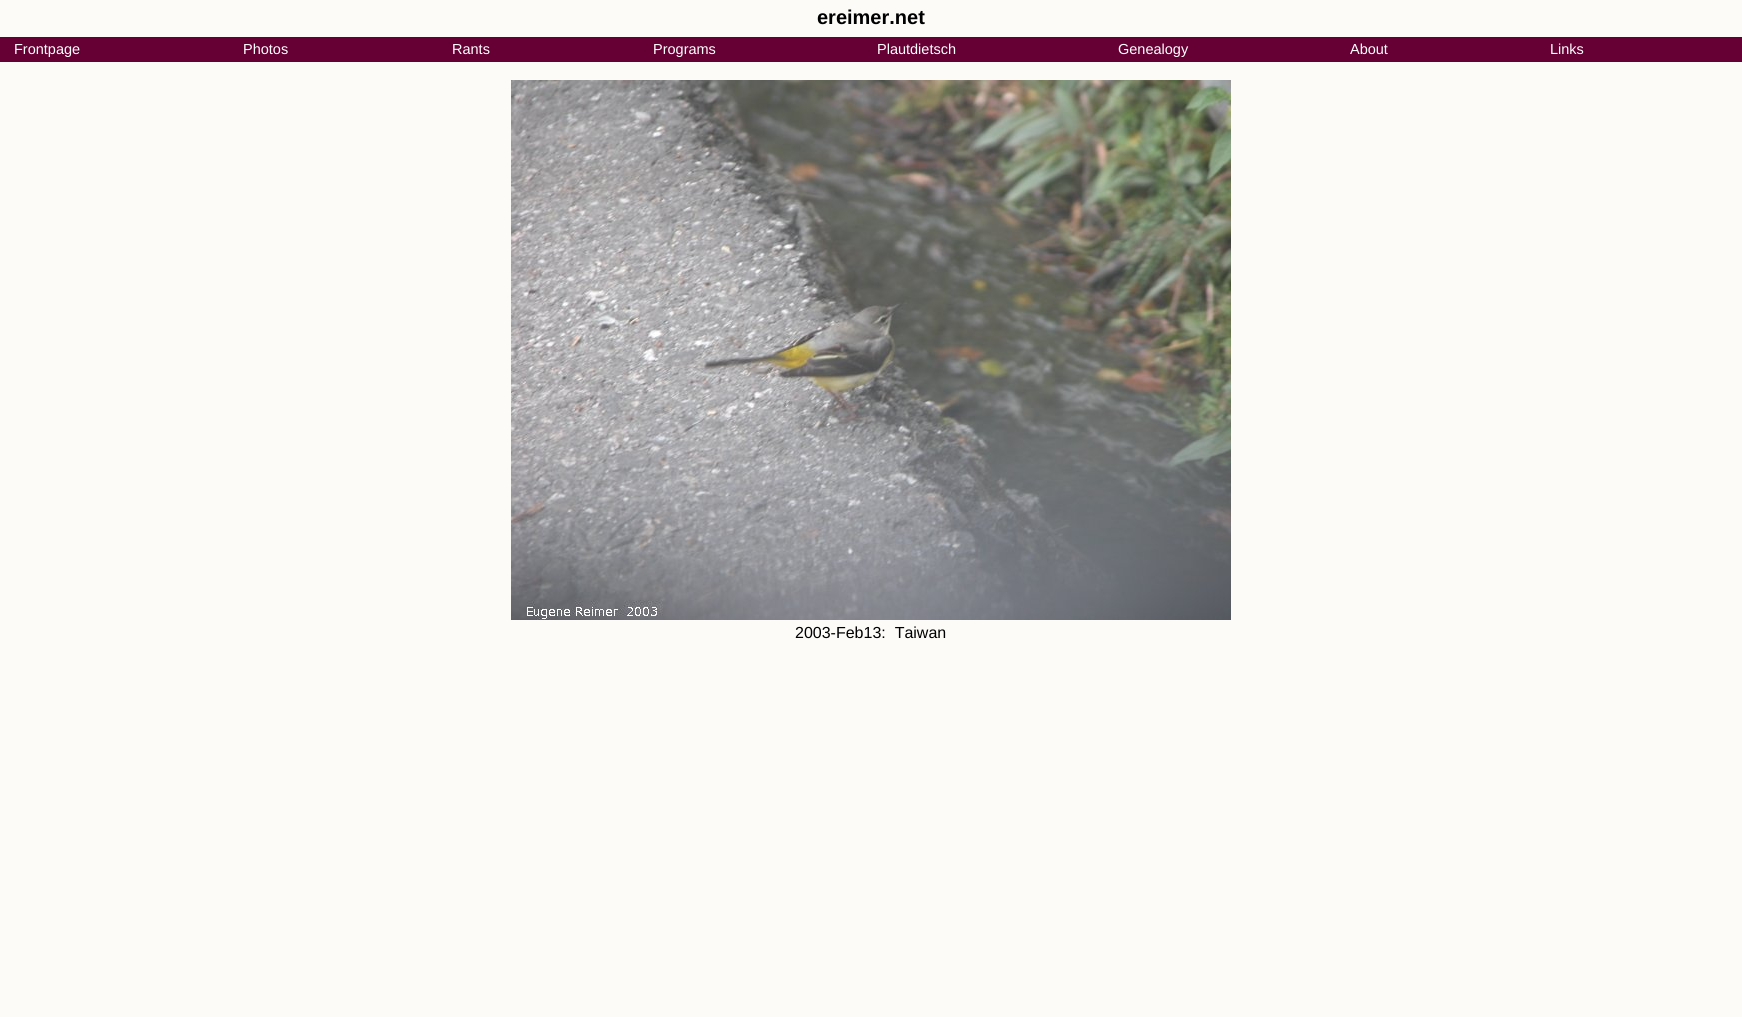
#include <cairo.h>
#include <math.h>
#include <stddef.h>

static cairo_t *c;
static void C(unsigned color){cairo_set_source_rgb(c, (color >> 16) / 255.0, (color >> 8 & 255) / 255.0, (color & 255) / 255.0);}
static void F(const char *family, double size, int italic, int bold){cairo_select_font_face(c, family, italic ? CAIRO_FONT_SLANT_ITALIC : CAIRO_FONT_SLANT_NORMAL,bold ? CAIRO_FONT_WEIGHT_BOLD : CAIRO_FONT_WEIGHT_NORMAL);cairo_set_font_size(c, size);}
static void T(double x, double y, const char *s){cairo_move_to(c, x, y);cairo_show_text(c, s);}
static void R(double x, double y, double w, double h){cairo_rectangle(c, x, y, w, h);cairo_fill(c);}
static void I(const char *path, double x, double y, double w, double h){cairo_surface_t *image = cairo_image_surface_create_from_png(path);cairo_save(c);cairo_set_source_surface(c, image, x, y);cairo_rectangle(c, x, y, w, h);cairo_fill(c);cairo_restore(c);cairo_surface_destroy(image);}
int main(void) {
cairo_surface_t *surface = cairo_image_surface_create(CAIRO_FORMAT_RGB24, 1742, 1017);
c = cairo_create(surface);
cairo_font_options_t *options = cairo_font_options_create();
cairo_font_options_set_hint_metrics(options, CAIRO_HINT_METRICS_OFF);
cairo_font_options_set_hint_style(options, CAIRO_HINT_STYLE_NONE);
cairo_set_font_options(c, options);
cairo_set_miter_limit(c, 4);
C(0xfcfbf8);
cairo_paint(c);
F("Liberation Sans",20,0,1);
C(0x000000);
T(817,24,"ereimer.net");
C(0x660034);
R(0,37,1742,25);
F("Liberation Sans",14.5,0,0);
C(0xffffff);
T(14,54,"Frontpage");
T(243,54,"Photos");
T(452,54,"Rants");
T(653,54,"Programs");
T(877,54,"Plautdietsch");
T(1118,54,"Genealogy");
T(1350,54,"About");
T(1550,54,"Links");
I("1.png",511,80,720,540);
F("Liberation Sans",16,0,0);
C(0x000000);
T(795,638,"2003-Feb13:  Taiwan");
cairo_surface_write_to_png(surface, "o.png");
cairo_font_options_destroy(options);
cairo_destroy(c);
cairo_surface_destroy(surface);
return 0;
}
